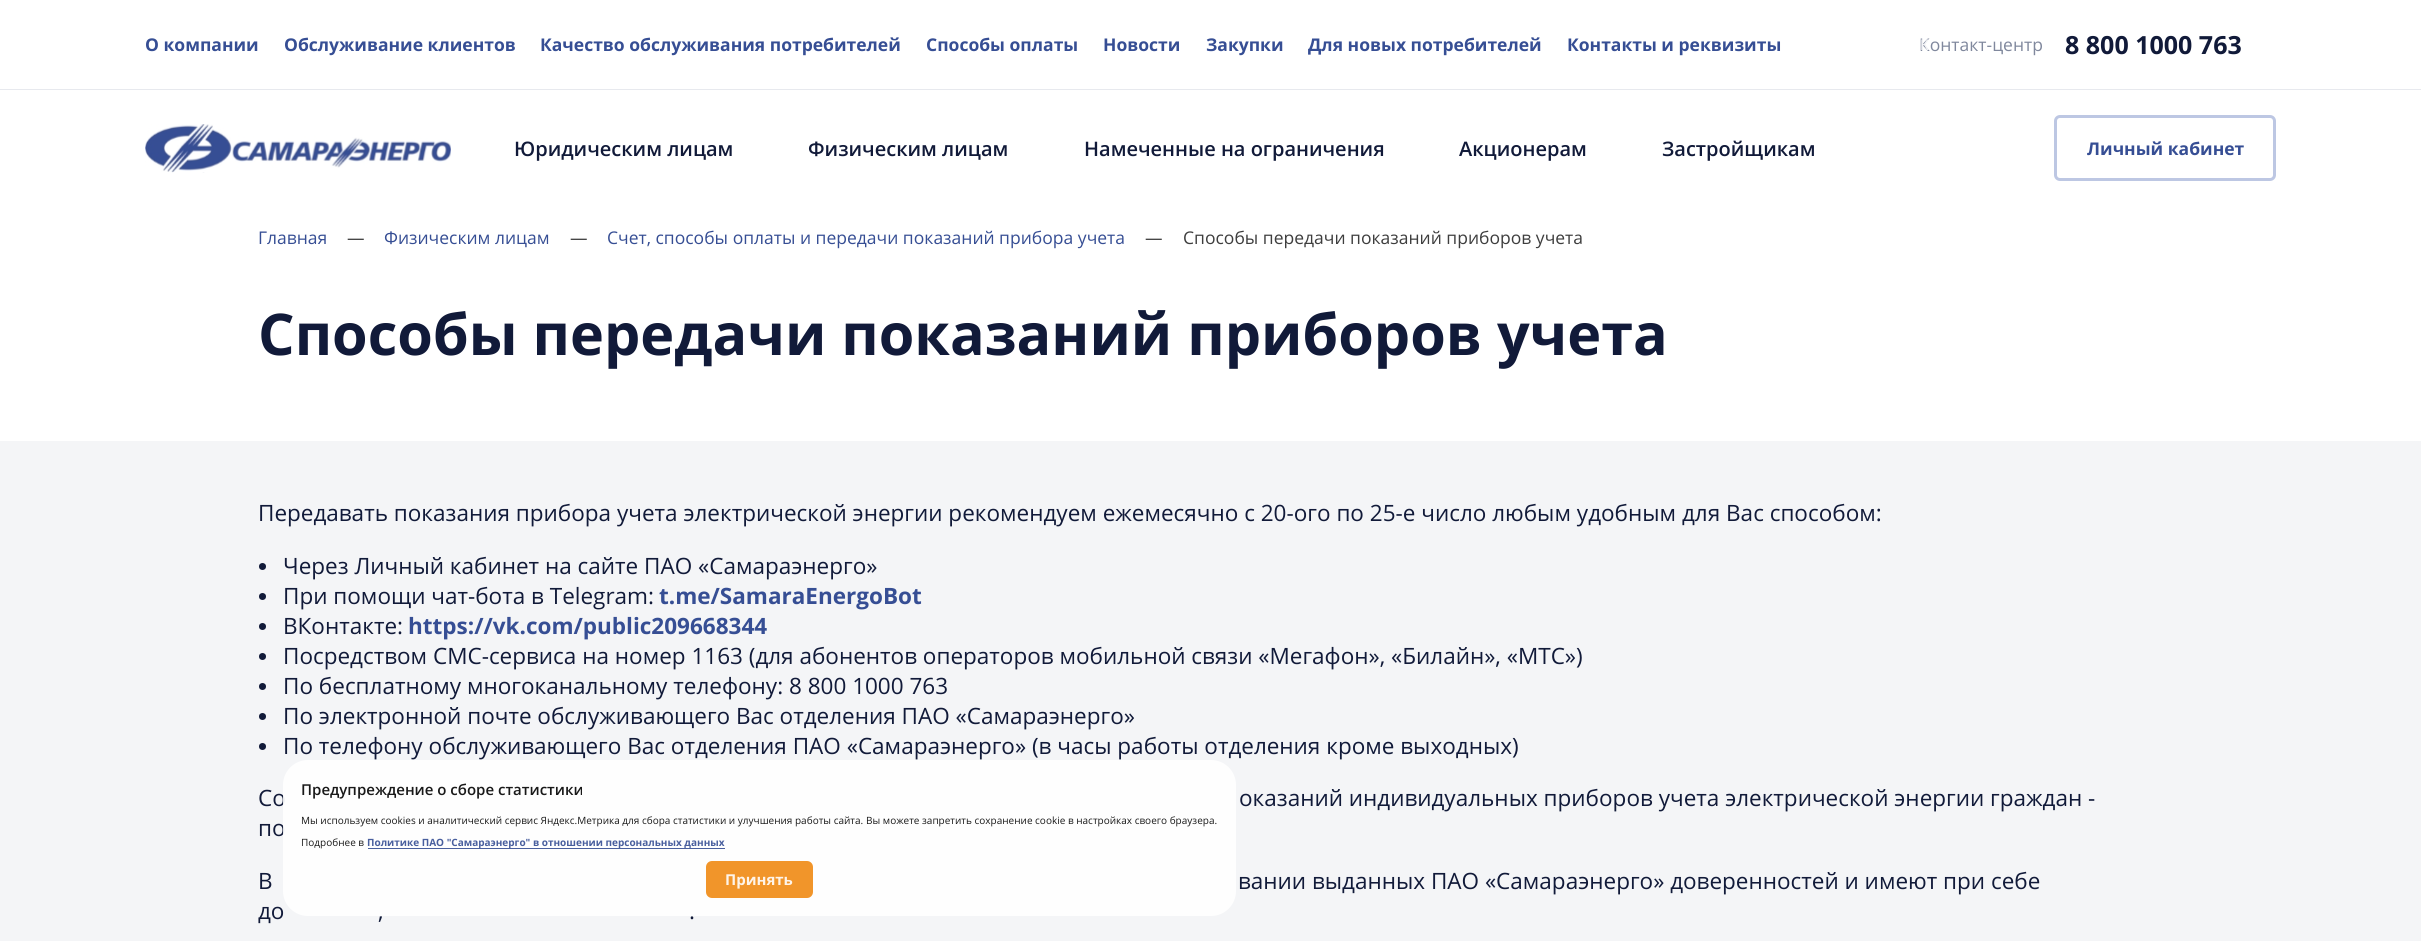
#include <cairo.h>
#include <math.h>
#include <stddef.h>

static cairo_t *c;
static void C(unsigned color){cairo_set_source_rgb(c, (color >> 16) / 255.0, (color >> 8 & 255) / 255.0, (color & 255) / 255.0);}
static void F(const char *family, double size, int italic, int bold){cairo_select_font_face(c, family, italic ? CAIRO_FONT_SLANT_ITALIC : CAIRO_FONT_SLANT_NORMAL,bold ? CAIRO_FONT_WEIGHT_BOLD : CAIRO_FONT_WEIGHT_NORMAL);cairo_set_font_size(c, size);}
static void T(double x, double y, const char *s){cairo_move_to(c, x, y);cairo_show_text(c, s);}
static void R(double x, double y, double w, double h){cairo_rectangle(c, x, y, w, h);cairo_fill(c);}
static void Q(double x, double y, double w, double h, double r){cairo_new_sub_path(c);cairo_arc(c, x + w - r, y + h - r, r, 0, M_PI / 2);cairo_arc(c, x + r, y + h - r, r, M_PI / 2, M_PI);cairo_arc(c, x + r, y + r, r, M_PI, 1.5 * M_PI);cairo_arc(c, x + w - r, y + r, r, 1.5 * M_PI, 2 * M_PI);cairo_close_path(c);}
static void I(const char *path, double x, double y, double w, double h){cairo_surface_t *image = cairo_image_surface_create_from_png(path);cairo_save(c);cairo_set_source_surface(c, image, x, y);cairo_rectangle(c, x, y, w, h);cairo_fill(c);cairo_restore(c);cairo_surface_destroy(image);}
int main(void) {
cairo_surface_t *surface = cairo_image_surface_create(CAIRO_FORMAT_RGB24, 2421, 941);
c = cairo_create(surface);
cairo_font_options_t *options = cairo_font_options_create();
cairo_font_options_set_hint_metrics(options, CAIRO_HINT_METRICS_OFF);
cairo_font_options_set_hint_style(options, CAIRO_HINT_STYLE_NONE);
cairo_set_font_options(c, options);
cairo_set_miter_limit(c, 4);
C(0xf4f5f7);
cairo_paint(c);
C(0xffffff);
R(0,0,2421,441);
C(0xe7e9ee);
R(0,89,2421,1);
F("Open Sans",17.5,0,1);
C(0x364e94);
T(145,51,"О компании");
T(284,51,"Обслуживание клиентов");
T(540,51,"Качество обслуживания потребителей");
T(926,51,"Способы оплаты");
T(1103,51,"Новости");
T(1206,51,"Закупки");
T(1308,51,"Для новых потребителей");
T(1567,51,"Контакты и реквизиты");
F("Open Sans",17.5,0,0);
C(0x80889d);
T(1919,51,"Контакт-центр");
F("Open Sans",25,0,1);
C(0x111a39);
T(2065,54,"8 800 1000 763");
F("Liberation Sans",20,0,0);
C(0xf3f4f6);
T(1920,50,"к");
I("1.png",145,124,306,49);
F("Open Sans SemiBold",20,0,0);
C(0x111a39);
T(514,156,"Юридическим лицам");
T(808,156,"Физическим лицам");
T(1084,156,"Намеченные на ограничения");
T(1459,156,"Акционерам");
T(1662,156,"Застройщикам");
Q(2055.5,116.5,219,63,4.5);
C(0xbdc7e3);
cairo_set_line_width(c,3);
cairo_stroke(c);
F("Open Sans",17.5,0,1);
C(0x364e94);
T(2087,155,"Личный кабинет");
F("Open Sans",17.5,0,0);
T(258,244,"Главная");
C(0x3e3e3e);
T(347,244,"—");
C(0x364e94);
T(384,244,"Физическим лицам");
C(0x3e3e3e);
T(570,244,"—");
C(0x364e94);
T(607,244,"Счет, способы оплаты и передачи показаний прибора учета");
C(0x3e3e3e);
T(1145,244,"—");
T(1183,244,"Способы передачи показаний приборов учета");
F("Open Sans",57.5,0,1);
C(0x111a39);
T(258,355,"Способы передачи показаний приборов учета");
F("Open Sans",22.5,0,0);
T(258,521,"Передавать показания прибора учета электрической энергии рекомендуем ежемесячно c 20-ого по 25-е число любым удобным для Вас способом:");
cairo_new_path(c);
cairo_arc(c,262.5,566.5,3.5,0,2 * M_PI);
cairo_fill(c);
T(283,574,"Через Личный кабинет на сайте ПАО «Самараэнерго»");
cairo_new_path(c);
cairo_arc(c,262.5,596.5,3.5,0,2 * M_PI);
cairo_fill(c);
T(283,604,"При помощи чат-бота в Telegram:");
F("Open Sans",22.5,0,1);
C(0x364e94);
T(659,604,"t.me/SamaraEnergoBot");
C(0x111a39);
cairo_new_path(c);
cairo_arc(c,262.5,626.5,3.5,0,2 * M_PI);
cairo_fill(c);
F("Open Sans",22.5,0,0);
T(283,634,"ВКонтакте:");
F("Open Sans",22.5,0,1);
C(0x364e94);
T(408,634,"https://vk.com/public209668344");
C(0x111a39);
cairo_new_path(c);
cairo_arc(c,262.5,656.5,3.5,0,2 * M_PI);
cairo_fill(c);
F("Open Sans",22.5,0,0);
T(283,664,"Посредством СМС-сервиса на номер 1163 (для абонентов операторов мобильной связи «Мегафон», «Билайн», «МТС»)");
cairo_new_path(c);
cairo_arc(c,262.5,686.5,3.5,0,2 * M_PI);
cairo_fill(c);
T(283,694,"По бесплатному многоканальному телефону: 8 800 1000 763");
cairo_new_path(c);
cairo_arc(c,262.5,716.5,3.5,0,2 * M_PI);
cairo_fill(c);
T(283,724,"По электронной почте обслуживающего Вас отделения ПАО «Самараэнерго»");
cairo_new_path(c);
cairo_arc(c,262.5,746.5,3.5,0,2 * M_PI);
cairo_fill(c);
T(283,754,"По телефону обслуживающего Вас отделения ПАО «Самараэнерго» (в часы работы отделения кроме выходных)");
T(258,806,"Со");
T(258,836,"по");
cairo_set_source_rgba(c,1,1,1,0.9);
Q(283,760,953,156,25);
cairo_fill(c);
F("Open Sans SemiBold",15,0,0);
C(0x191919);
T(301,795,"Предупреждение о сборе статистики");
F("Open Sans",10,0,0);
T(301,824,"Мы используем cookies и аналитический сервис Яндекс.Метрика для сбора статистики и улучшения работы сайта.");
T(866,824,"Вы можете запретить сохранение cookie в настройках своего браузера.");
T(301,846,"Подробнее в");
C(0x495f9e);
R(368,848,357,1);
F("Open Sans",10,0,1);
T(367,846,"Политике ПАО \"Самараэнерго\" в отношении персональных данных");
cairo_set_source_rgba(c,0.941,0.541,0.075,0.9);
Q(706,861,107,37,6);
cairo_fill(c);
F("Open Sans",15,0,1);
C(0xfef4ea);
T(725,885,"Принять");
F("Open Sans",22.5,0,0);
C(0x111a39);
T(1239,806,"оказаний индивидуальных приборов учета электрической энергии граждан -");
T(258,889,"В");
T(1238,889,"вании выданных ПАО «Самараэнерго» доверенностей и имеют при себе");
T(258,919,"до");
T(378,919,",");
T(689,919,".");
cairo_surface_write_to_png(surface, "o.png");
cairo_font_options_destroy(options);
cairo_destroy(c);
cairo_surface_destroy(surface);
return 0;
}
